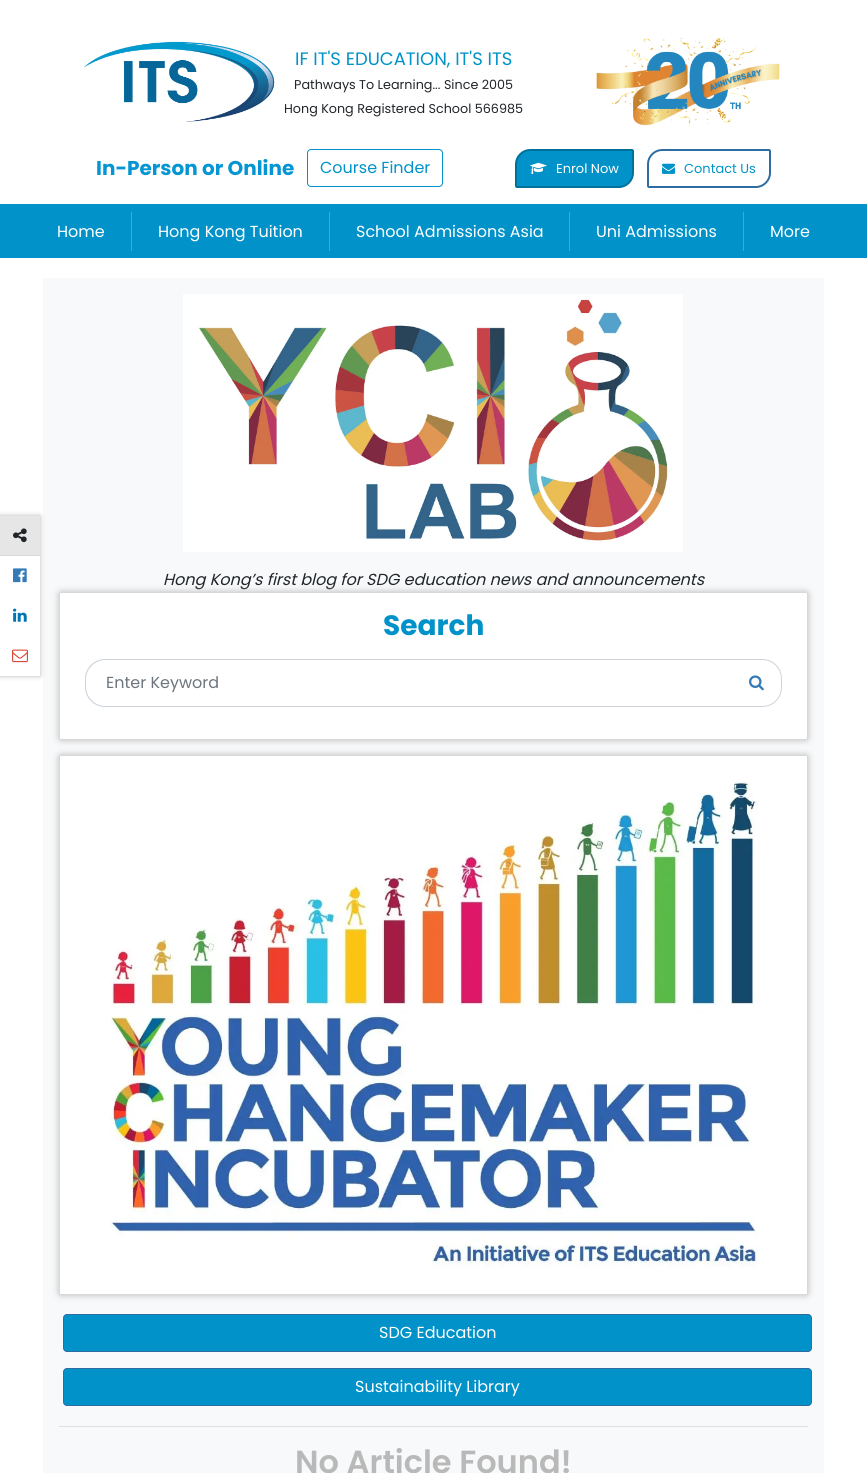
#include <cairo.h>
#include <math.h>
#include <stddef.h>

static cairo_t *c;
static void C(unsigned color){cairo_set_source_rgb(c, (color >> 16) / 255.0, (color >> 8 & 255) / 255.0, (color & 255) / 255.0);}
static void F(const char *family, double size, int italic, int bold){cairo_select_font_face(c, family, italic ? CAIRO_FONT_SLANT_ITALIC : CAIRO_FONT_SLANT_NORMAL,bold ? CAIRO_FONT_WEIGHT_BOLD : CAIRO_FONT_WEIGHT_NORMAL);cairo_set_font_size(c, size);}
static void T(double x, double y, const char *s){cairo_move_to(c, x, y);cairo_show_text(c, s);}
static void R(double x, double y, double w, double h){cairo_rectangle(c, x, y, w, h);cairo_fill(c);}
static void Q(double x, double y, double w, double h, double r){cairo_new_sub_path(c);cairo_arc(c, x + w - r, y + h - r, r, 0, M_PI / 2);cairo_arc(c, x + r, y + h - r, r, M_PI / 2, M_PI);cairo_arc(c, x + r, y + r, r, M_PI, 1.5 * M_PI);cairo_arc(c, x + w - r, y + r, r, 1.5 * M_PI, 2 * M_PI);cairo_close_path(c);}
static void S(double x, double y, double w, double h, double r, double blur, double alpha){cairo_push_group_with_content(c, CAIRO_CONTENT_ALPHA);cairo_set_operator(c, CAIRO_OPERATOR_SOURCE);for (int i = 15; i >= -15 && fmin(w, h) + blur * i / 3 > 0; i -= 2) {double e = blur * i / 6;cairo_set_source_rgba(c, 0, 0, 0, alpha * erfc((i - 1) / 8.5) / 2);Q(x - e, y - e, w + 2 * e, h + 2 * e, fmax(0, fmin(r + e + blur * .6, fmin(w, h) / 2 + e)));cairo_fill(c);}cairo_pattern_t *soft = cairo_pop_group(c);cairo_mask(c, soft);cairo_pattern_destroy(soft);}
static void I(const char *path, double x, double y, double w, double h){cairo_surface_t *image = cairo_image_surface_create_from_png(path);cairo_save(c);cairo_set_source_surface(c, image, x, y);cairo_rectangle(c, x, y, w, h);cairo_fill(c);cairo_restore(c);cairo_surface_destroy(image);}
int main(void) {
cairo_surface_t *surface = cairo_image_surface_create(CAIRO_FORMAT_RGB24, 867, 1473);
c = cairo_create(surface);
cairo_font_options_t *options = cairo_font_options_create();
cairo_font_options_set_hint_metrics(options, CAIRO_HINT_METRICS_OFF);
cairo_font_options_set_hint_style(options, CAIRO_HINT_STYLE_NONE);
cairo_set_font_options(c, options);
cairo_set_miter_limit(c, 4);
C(0xffffff);
cairo_paint(c);
I("1.png",84,41,191,81);
F("Poppins",18,0,0);
C(0x0092c8);
T(295,65,"IF IT'S EDUCATION, IT'S ITS");
F("Poppins",12.75,0,0);
C(0x212529);
T(294,89,"Pathways To Learning... Since 2005");
T(284,113,"Hong Kong Registered School 566985");
I("2.png",596,37,184,90);
F("Poppins",20,0,1);
C(0x0396d2);
T(96,175,"In-Person or Online");
Q(307.5,149.5,135,37,3.5);
C(0x0092c8);
cairo_set_line_width(c,1);
cairo_stroke(c);
F("Poppins",16,0,0);
T(320,173,"Course Finder");
cairo_new_path(c);
cairo_move_to(c,530,150);
cairo_line_to(c,632,150);
cairo_curve_to(c,632.5,150,633,150.5,633,151);
cairo_line_to(c,633,173);
cairo_curve_to(c,633,180.5,626.5,187,619,187);
cairo_line_to(c,517,187);
cairo_curve_to(c,516.5,187,516,186.5,516,186);
cairo_line_to(c,516,164);
cairo_curve_to(c,516,156.5,522.5,150,530,150);
cairo_close_path(c);
cairo_fill_preserve(c);
C(0x00719a);
cairo_set_line_width(c,2);
cairo_stroke(c);
I("3.png",530,162,17,12);
F("Poppins",13,0,0);
C(0xffffff);
T(556,173,"Enrol Now");
cairo_new_path(c);
cairo_move_to(c,662,150);
cairo_line_to(c,769,150);
cairo_curve_to(c,769.5,150,770,150.5,770,151);
cairo_line_to(c,770,173);
cairo_curve_to(c,770,180.5,763.5,187,756,187);
cairo_line_to(c,649,187);
cairo_curve_to(c,648.5,187,648,186.5,648,186);
cairo_line_to(c,648,164);
cairo_curve_to(c,648,156.5,654.5,150,662,150);
cairo_close_path(c);
C(0x2e6da4);
cairo_stroke(c);
I("4.png",662,163,13,11);
C(0x0092c8);
T(684,173,"Contact Us");
R(0,204,867,54);
C(0x31afde);
R(131,212,1,39);
F("Poppins",16,0,0);
C(0xffffff);
T(57,237,"Home");
C(0x31afde);
R(329,212,1,39);
C(0xffffff);
T(158,237,"Hong Kong Tuition");
C(0x31afde);
R(569,212,1,39);
C(0xffffff);
T(356,237,"School Admissions Asia");
C(0x31afde);
R(743,212,1,39);
C(0xffffff);
T(596,237,"Uni Admissions");
T(770,237,"More");
C(0xf8f9fa);
R(43,278,781,1195);
cairo_save(c);
cairo_set_fill_rule(c,CAIRO_FILL_RULE_EVEN_ODD);
cairo_new_path(c);
cairo_move_to(c,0,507);
cairo_line_to(c,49,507);
cairo_line_to(c,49,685);
cairo_line_to(c,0,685);
cairo_close_path(c);
cairo_move_to(c,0,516);
cairo_line_to(c,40,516);
cairo_line_to(c,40,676);
cairo_line_to(c,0,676);
cairo_close_path(c);
cairo_clip(c);
C(0xb7b7b7);
S(0,516,40,160,0,2.5,1);
cairo_restore(c);
C(0xe6e6e6);
R(0,516,40,39);
C(0xdadada);
R(0,555,40,1);
I("5.png",13,528,14,15);
I("6.png",13,568,14,15);
I("7.png",13,608,14,14);
I("8.png",12,649,16,14);
I("9.png",183,294,500,258);
F("Poppins",16,1,0);
C(0x212529);
T(163,585,"Hong Kong’s first blog for SDG education news and announcements");
C(0xbbbbbb);
S(59,592,749,148,2,3.5,1);
C(0xffffff);
Q(59.5,592.5,748,147,1.5);
cairo_fill_preserve(c);
C(0xd8d8d8);
cairo_set_line_width(c,1);
cairo_stroke(c);
F("Poppins",28,0,1);
C(0x0092c8);
T(383,635,"Search");
cairo_new_path(c);
cairo_move_to(c,736.5,659.5);
cairo_line_to(c,762,659.5);
cairo_curve_to(c,773,659.5,781.5,668,781.5,679);
cairo_line_to(c,781.5,687);
cairo_curve_to(c,781.5,698,773,706.5,762,706.5);
cairo_line_to(c,736.5,706.5);
cairo_close_path(c);
C(0xced4da);
cairo_stroke(c);
C(0xffffff);
cairo_new_path(c);
cairo_move_to(c,105,660);
cairo_line_to(c,737,660);
cairo_line_to(c,737,706);
cairo_line_to(c,105,706);
cairo_curve_to(c,94.5,706,86,697.5,86,687);
cairo_line_to(c,86,679);
cairo_curve_to(c,86,668.5,94.5,660,105,660);
cairo_close_path(c);
cairo_fill(c);
C(0xced4da);
cairo_set_fill_rule(c,CAIRO_FILL_RULE_EVEN_ODD);
cairo_new_path(c);
cairo_move_to(c,105,659);
cairo_line_to(c,737,659);
cairo_line_to(c,737,707);
cairo_line_to(c,105,707);
cairo_curve_to(c,94,707,85,698,85,687);
cairo_line_to(c,85,679);
cairo_curve_to(c,85,668,94,659,105,659);
cairo_close_path(c);
cairo_move_to(c,105,660);
cairo_line_to(c,737,660);
cairo_line_to(c,737,706);
cairo_line_to(c,105,706);
cairo_curve_to(c,95,706,86,697,86,687);
cairo_line_to(c,86,679);
cairo_curve_to(c,86,669,95,660,105,660);
cairo_close_path(c);
cairo_fill(c);
F("Poppins",16,0,0);
C(0x6c757d);
T(106,688,"Enter Keyword");
I("10.png",749,675,15,16);
C(0xbbbbbb);
S(59,755,749,540,2,3.5,1);
C(0xffffff);
Q(59.5,755.5,748,539,1.5);
cairo_fill_preserve(c);
C(0xd8d8d8);
cairo_stroke(c);
I("11.png",110,782,649,486);
C(0x0092c8);
Q(63.5,1314.5,748,37,3.5);
cairo_fill_preserve(c);
C(0x2e6da4);
cairo_stroke(c);
C(0xffffff);
T(379,1338,"SDG Education");
C(0x0092c8);
Q(63.5,1368.5,748,37,3.5);
cairo_fill_preserve(c);
C(0x2e6da4);
cairo_stroke(c);
C(0xffffff);
T(355,1392,"Sustainability Library");
C(0xdfe0e1);
R(59,1426,749,1);
F("Poppins SemiBold",32,0,0);
C(0xb9b9b9);
T(295,1473,"No Article Found!");
cairo_surface_write_to_png(surface, "o.png");
cairo_font_options_destroy(options);
cairo_destroy(c);
cairo_surface_destroy(surface);
return 0;
}
